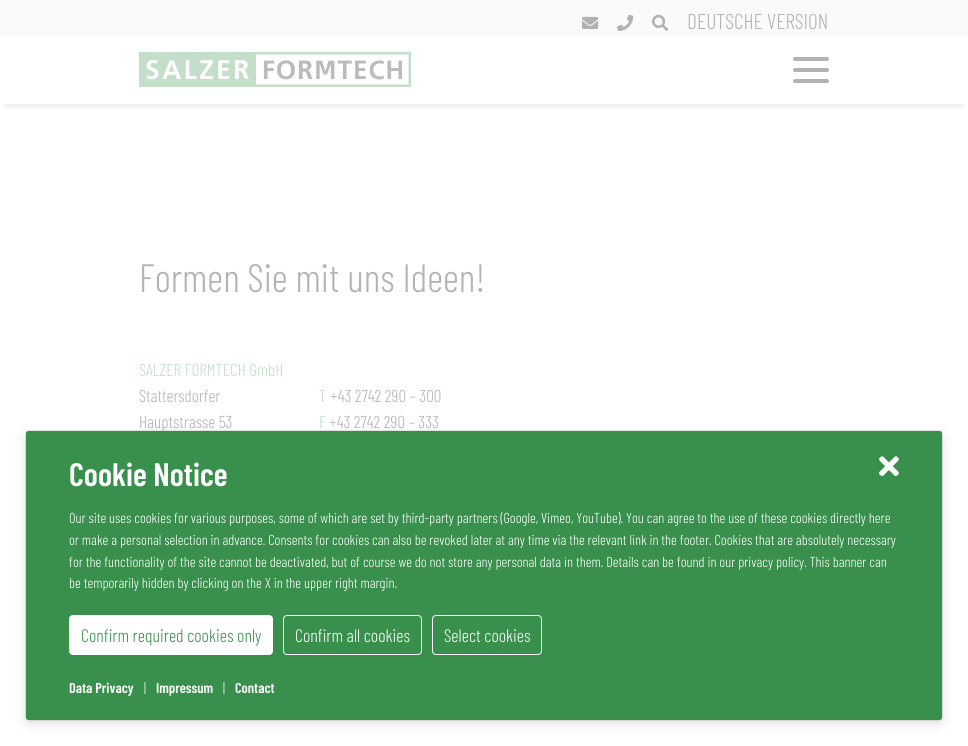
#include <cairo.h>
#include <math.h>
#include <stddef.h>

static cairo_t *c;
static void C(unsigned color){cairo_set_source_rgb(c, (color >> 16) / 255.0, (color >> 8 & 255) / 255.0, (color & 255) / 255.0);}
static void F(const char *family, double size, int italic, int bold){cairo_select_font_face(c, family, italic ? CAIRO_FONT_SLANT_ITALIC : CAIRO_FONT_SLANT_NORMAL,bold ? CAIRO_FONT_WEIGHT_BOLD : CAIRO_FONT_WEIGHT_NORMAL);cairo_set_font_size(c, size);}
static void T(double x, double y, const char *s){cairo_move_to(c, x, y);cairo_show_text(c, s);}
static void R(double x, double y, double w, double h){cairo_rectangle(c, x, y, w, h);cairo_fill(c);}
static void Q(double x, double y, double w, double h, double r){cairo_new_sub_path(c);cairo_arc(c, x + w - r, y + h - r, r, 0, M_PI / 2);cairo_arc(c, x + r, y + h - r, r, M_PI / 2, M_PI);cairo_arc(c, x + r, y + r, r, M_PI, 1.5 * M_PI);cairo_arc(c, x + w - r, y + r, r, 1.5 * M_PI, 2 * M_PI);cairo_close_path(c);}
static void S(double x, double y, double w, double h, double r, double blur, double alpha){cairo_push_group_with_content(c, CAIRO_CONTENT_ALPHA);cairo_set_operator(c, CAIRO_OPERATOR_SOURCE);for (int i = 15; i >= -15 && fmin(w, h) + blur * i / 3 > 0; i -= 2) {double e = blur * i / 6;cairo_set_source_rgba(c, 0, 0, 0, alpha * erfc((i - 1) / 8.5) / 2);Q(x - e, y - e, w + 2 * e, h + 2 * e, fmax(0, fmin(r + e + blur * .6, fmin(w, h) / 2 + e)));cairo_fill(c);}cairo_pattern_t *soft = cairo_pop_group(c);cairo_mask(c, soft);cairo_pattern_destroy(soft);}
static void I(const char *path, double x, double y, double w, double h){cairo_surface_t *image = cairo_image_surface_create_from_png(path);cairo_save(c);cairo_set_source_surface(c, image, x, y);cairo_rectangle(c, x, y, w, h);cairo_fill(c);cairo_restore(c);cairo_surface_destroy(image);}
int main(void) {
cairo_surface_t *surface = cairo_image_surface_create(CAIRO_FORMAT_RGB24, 968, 746);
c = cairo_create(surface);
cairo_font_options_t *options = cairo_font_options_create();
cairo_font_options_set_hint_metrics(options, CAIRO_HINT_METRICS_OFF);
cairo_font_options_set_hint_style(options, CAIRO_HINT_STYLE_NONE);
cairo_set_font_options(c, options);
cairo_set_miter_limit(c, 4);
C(0xffffff);
cairo_paint(c);
cairo_save(c);
cairo_rectangle(c,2,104,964,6);
cairo_clip(c);
C(0xb3b3b3);
S(5,12,958,94,0,2.5,.3);
cairo_restore(c);
C(0xfafafa);
R(0,0,968,36);
I("1.png",582,16,17,13);
I("2.png",617,14,17,17);
I("3.png",652,14,17,17);
F("Barlow Condensed Light",21.5,0,0);
C(0xb3b3b3);
T(687,29,"DEUTSCHE VERSION");
I("4.png",139,52,272,35);
Q(793,57,36,4,2);
cairo_fill(c);
Q(793,68,36,4,2);
cairo_fill(c);
Q(793,79,36,4,2);
cairo_fill(c);
F("Barlow Condensed Light",39.5,0,0);
T(139,292,"Formen Sie mit uns Ideen!");
F("Barlow Condensed Light",17.25,0,0);
C(0xc3dec9);
T(139,376,"SALZER FORMTECH GmbH");
C(0xb3b3b3);
T(139,402,"Stattersdorfer");
T(139,428,"Hauptstrasse 53");
C(0xc3dec9);
T(319,402,"T");
C(0xb3b3b3);
T(330,402,"+43 2742 290 – 300");
C(0xc3dec9);
T(319,428,"F");
C(0xb3b3b3);
T(329,428,"+43 2742 290 – 333");
C(0x000000);
S(25,434,918,291,4,5.5,.1);
C(0x38904c);
Q(26,431,916,289,2.5);
cairo_fill(c);
Q(25.5,430.5,917,290,3.5);
cairo_set_source_rgba(c,0,0,0,0.1);
cairo_set_line_width(c,1);
cairo_stroke(c);
F("Barlow Condensed SemiBold",32.5,0,0);
C(0xffffff);
T(69,486,"Cookie Notice");
I("5.png",879,456,20,21);
F("Barlow Condensed Light",14.4,0,0);
T(69,523,"Our site uses cookies for various purposes, some of which are set by third-party partners (Google, Vimeo, YouTube). You can agree to the use of these cookies directly here");
T(69,545,"or make a personal selection in advance. Consents for cookies can also be revoked later at any time via the relevant link in the footer. Cookies that are absolutely necessary");
T(69,567,"for the functionality of the site cannot be deactivated, but of course we do not store any personal data in them. Details can be found in our privacy policy. This banner can");
T(69,588,"be temporarily hidden by clicking on the X in the upper right margin.");
Q(69.5,615.5,203,39,3.5);
cairo_fill_preserve(c);
cairo_stroke(c);
F("Barlow Condensed Light",18,0,0);
C(0x38904c);
T(81,642,"Confirm required cookies only");
Q(283.5,615.5,138,39,3.5);
C(0xffffff);
cairo_stroke(c);
T(295,642,"Confirm all cookies");
Q(432.5,615.5,109,39,3.5);
cairo_stroke(c);
T(444,642,"Select cookies");
F("Barlow Condensed SemiBold",14.4,0,0);
T(69,693,"Data Privacy");
F("Barlow Condensed Light",14.4,0,0);
T(144,693,"|");
F("Barlow Condensed SemiBold",14.4,0,0);
T(156,693,"Impressum");
F("Barlow Condensed Light",14.4,0,0);
T(223,693,"|");
F("Barlow Condensed SemiBold",14.4,0,0);
T(235,693,"Contact");
cairo_surface_write_to_png(surface, "o.png");
cairo_font_options_destroy(options);
cairo_destroy(c);
cairo_surface_destroy(surface);
return 0;
}
